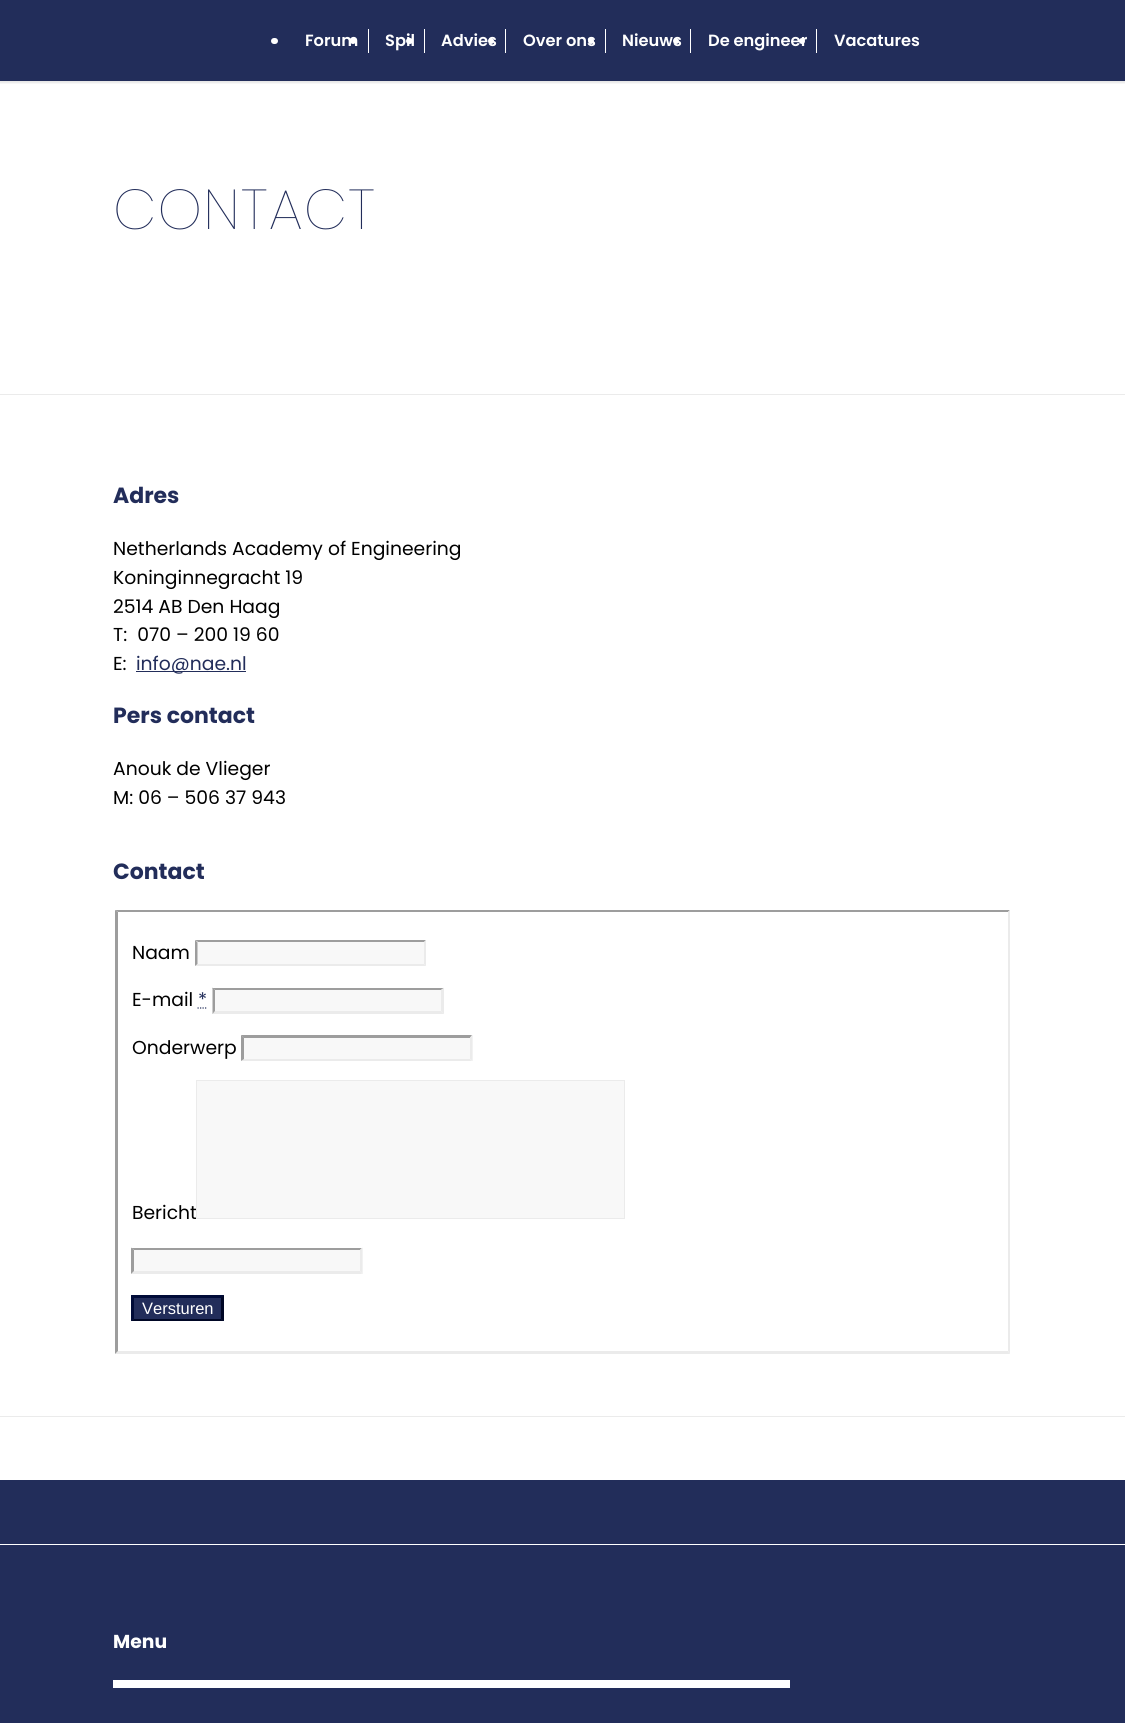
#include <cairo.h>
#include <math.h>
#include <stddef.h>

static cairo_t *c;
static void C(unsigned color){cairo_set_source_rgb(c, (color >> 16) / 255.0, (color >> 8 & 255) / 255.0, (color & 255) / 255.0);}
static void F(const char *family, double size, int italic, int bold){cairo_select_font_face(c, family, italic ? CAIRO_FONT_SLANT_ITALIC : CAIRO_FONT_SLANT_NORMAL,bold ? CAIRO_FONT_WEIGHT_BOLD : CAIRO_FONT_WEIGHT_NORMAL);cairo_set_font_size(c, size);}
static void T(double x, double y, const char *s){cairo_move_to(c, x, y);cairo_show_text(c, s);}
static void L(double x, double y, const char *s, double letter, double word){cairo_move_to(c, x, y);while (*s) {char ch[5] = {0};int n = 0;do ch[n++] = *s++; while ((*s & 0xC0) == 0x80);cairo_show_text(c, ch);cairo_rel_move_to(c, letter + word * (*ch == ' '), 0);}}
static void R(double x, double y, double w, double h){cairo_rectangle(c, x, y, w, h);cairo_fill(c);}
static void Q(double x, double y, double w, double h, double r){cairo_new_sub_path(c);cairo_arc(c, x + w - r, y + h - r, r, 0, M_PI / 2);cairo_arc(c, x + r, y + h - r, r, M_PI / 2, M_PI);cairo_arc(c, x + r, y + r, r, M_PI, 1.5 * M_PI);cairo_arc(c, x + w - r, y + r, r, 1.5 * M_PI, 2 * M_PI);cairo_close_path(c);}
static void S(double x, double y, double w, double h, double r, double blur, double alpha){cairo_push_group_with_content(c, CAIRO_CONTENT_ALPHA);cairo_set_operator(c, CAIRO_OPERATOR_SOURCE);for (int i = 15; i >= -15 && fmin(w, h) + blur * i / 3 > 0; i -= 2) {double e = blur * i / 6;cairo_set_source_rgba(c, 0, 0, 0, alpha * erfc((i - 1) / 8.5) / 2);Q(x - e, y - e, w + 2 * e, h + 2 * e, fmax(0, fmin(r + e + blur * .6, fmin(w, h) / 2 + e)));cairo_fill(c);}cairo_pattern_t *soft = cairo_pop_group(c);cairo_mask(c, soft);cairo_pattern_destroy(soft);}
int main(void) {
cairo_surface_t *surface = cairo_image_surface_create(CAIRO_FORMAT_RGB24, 1125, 1723);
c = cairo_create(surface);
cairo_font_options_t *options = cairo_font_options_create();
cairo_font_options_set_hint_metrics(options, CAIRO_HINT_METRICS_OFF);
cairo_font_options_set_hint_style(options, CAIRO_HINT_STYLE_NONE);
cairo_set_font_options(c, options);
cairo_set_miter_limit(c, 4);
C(0x222d5a);
cairo_paint(c);
C(0xffffff);
R(0,81,1125,313);
cairo_save(c);
cairo_rectangle(c,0,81,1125,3);
cairo_clip(c);
C(0x000000);
S(-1,-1,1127,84,0,1,.1);
cairo_restore(c);
Q(271,38,7,6,3);
cairo_fill(c);
F("Poppins SemiBold",16.25,0,0);
T(305,46,"Forum");
cairo_new_path(c);
cairo_arc(c,353,41,3,0,2 * M_PI);
cairo_fill(c);
T(385,46,"Spil");
R(368,29,1,24);
Q(406,38,7,6,3);
cairo_fill(c);
T(441,46,"Advies");
R(424,29,1,24);
cairo_new_path(c);
cairo_arc(c,491,41,3,0,2 * M_PI);
cairo_fill(c);
T(523,46,"Over ons");
R(505,29,1,24);
cairo_new_path(c);
cairo_arc(c,591,41,3,0,2 * M_PI);
cairo_fill(c);
T(622,46,"Nieuws");
R(605,29,1,24);
cairo_new_path(c);
cairo_arc(c,676,41,3,0,2 * M_PI);
cairo_fill(c);
T(708,46,"De engineer");
R(690,29,1,24);
cairo_new_path(c);
cairo_arc(c,802,41,3,0,2 * M_PI);
cairo_fill(c);
T(834,46,"Vacatures");
R(816,29,1,24);
F("Poppins ExtraLight",56.25,0,0);
C(0x222d5a);
L(113,229,"CONTACT",1.25,0);
C(0xffffff);
R(0,395,1125,1021);
C(0xebebeb);
R(0,394,1125,1);
F("Poppins",22,0,1);
C(0x222d5a);
T(113,503,"Adres");
F("Poppins",18.75,0,0);
C(0x000000);
T(113,555,"Netherlands Academy of Engineering");
T(113,584,"Koninginnegracht 19");
T(113,613,"2514 AB Den Haag");
T(113,641,"T:  070 – 200 19 60");
T(113,670,"E:");
C(0x222d5a);
R(136,671,110,1);
T(136,670,"info@nae.nl");
F("Poppins",22,0,1);
T(113,723,"Pers contact");
F("Poppins",18.75,0,0);
C(0x000000);
T(113,775,"Anouk de Vlieger");
T(113,804,"M: 06 – 506 37 943");
F("Poppins",22,0,1);
C(0x222d5a);
T(113,879,"Contact");
C(0x9d9d9d);
cairo_new_path(c);
cairo_move_to(c,115,910);
cairo_line_to(c,1010,910);
cairo_line_to(c,1008,912);
cairo_line_to(c,118,912);
cairo_close_path(c);
cairo_fill(c);
C(0xebebeb);
cairo_new_path(c);
cairo_move_to(c,1010,910);
cairo_line_to(c,1010,1354);
cairo_line_to(c,1008,1351);
cairo_line_to(c,1008,912);
cairo_close_path(c);
cairo_fill(c);
cairo_new_path(c);
cairo_move_to(c,1010,1354);
cairo_line_to(c,115,1354);
cairo_line_to(c,118,1351);
cairo_line_to(c,1008,1351);
cairo_close_path(c);
cairo_fill(c);
C(0x9d9d9d);
cairo_new_path(c);
cairo_move_to(c,115,1354);
cairo_line_to(c,115,910);
cairo_line_to(c,118,912);
cairo_line_to(c,118,1351);
cairo_close_path(c);
cairo_fill(c);
F("Poppins",18.75,0,0);
C(0x000000);
T(132,959,"Naam");
C(0xf8f8f8);
R(195,940,231,26);
C(0x9d9d9d);
cairo_new_path(c);
cairo_move_to(c,195,940);
cairo_line_to(c,426,940);
cairo_line_to(c,424,942);
cairo_line_to(c,198,942);
cairo_close_path(c);
cairo_fill(c);
C(0xebebeb);
cairo_new_path(c);
cairo_move_to(c,426,940);
cairo_line_to(c,426,966);
cairo_line_to(c,424,964);
cairo_line_to(c,424,942.5);
cairo_close_path(c);
cairo_fill(c);
cairo_new_path(c);
cairo_move_to(c,426,966);
cairo_line_to(c,195,966);
cairo_line_to(c,198,964);
cairo_line_to(c,424,964);
cairo_close_path(c);
cairo_fill(c);
C(0x9d9d9d);
cairo_new_path(c);
cairo_move_to(c,195,966);
cairo_line_to(c,195,940);
cairo_line_to(c,197.5,942.5);
cairo_line_to(c,197.5,964);
cairo_close_path(c);
cairo_fill(c);
C(0x000000);
T(132,1006,"E-mail");
cairo_new_path(c);
cairo_move_to(c,197.5,1008);
cairo_line_to(c,207,1008);
C(0x222d5a);
cairo_set_line_width(c,1.2);
cairo_set_dash(c,(double[]){1.25,1.25},2,0);
cairo_stroke(c);
T(198,1006,"*");
C(0xf8f8f8);
R(213,988,231,26);
C(0x9d9d9d);
cairo_new_path(c);
cairo_move_to(c,212,988);
cairo_line_to(c,444,988);
cairo_line_to(c,441,990);
cairo_line_to(c,215,990);
cairo_close_path(c);
cairo_fill(c);
C(0xebebeb);
cairo_new_path(c);
cairo_move_to(c,444,987.5);
cairo_line_to(c,444,1014);
cairo_line_to(c,441,1011);
cairo_line_to(c,441,990);
cairo_close_path(c);
cairo_fill(c);
cairo_new_path(c);
cairo_move_to(c,444,1014);
cairo_line_to(c,212,1014);
cairo_line_to(c,215,1011);
cairo_line_to(c,441,1011);
cairo_close_path(c);
cairo_fill(c);
C(0x9d9d9d);
cairo_new_path(c);
cairo_move_to(c,212.5,1014);
cairo_line_to(c,212.5,987.5);
cairo_line_to(c,215,990);
cairo_line_to(c,215,1011);
cairo_close_path(c);
cairo_fill(c);
C(0x000000);
T(132,1054,"Onderwerp");
C(0xf8f8f8);
R(241,1035,232,26);
C(0x9d9d9d);
cairo_new_path(c);
cairo_move_to(c,241,1035);
cairo_line_to(c,472,1035);
cairo_line_to(c,470,1038);
cairo_line_to(c,244,1038);
cairo_close_path(c);
cairo_fill(c);
C(0xebebeb);
cairo_new_path(c);
cairo_move_to(c,472.5,1035);
cairo_line_to(c,472.5,1061);
cairo_line_to(c,470,1059);
cairo_line_to(c,470,1037.5);
cairo_close_path(c);
cairo_fill(c);
cairo_new_path(c);
cairo_move_to(c,472,1061);
cairo_line_to(c,241,1061);
cairo_line_to(c,244,1059);
cairo_line_to(c,470,1059);
cairo_close_path(c);
cairo_fill(c);
C(0x9d9d9d);
cairo_new_path(c);
cairo_move_to(c,241,1061);
cairo_line_to(c,241,1035);
cairo_line_to(c,244,1037.5);
cairo_line_to(c,244,1059);
cairo_close_path(c);
cairo_fill(c);
C(0x000000);
T(132,1219,"Bericht");
C(0xf8f8f8);
cairo_rectangle(c,196.5,1080.5,428,138);
cairo_fill_preserve(c);
C(0xebebeb);
cairo_set_line_width(c,1);
cairo_set_dash(c,NULL,0,0);
cairo_stroke(c);
C(0xf8f8f8);
R(131,1248,232,26);
C(0x9d9d9d);
cairo_new_path(c);
cairo_move_to(c,131,1248);
cairo_line_to(c,362,1248);
cairo_line_to(c,360,1250);
cairo_line_to(c,134,1250);
cairo_close_path(c);
cairo_fill(c);
C(0xebebeb);
cairo_new_path(c);
cairo_move_to(c,362.5,1247.5);
cairo_line_to(c,362.5,1274);
cairo_line_to(c,360,1271);
cairo_line_to(c,360,1250);
cairo_close_path(c);
cairo_fill(c);
cairo_new_path(c);
cairo_move_to(c,362,1274);
cairo_line_to(c,131,1274);
cairo_line_to(c,134,1271);
cairo_line_to(c,360,1271);
cairo_close_path(c);
cairo_fill(c);
C(0x9d9d9d);
cairo_new_path(c);
cairo_move_to(c,131,1274);
cairo_line_to(c,131,1247.5);
cairo_line_to(c,134,1250);
cairo_line_to(c,134,1271);
cairo_close_path(c);
cairo_fill(c);
C(0x222d5a);
R(131,1295,93,26);
C(0x000b38);
cairo_new_path(c);
cairo_move_to(c,131,1295);
cairo_line_to(c,224,1295);
cairo_line_to(c,221,1298);
cairo_line_to(c,134,1298);
cairo_close_path(c);
cairo_fill(c);
C(0x000725);
cairo_new_path(c);
cairo_move_to(c,224,1295);
cairo_line_to(c,224,1321);
cairo_line_to(c,221,1319);
cairo_line_to(c,221,1297.5);
cairo_close_path(c);
cairo_fill(c);
cairo_new_path(c);
cairo_move_to(c,224,1321);
cairo_line_to(c,131,1321);
cairo_line_to(c,134,1319);
cairo_line_to(c,221,1319);
cairo_close_path(c);
cairo_fill(c);
C(0x000b38);
cairo_new_path(c);
cairo_move_to(c,131,1321);
cairo_line_to(c,131,1295);
cairo_line_to(c,134,1297.5);
cairo_line_to(c,134,1319);
cairo_close_path(c);
cairo_fill(c);
F("Liberation Sans",16.5,0,0);
C(0xffffff);
T(142,1314,"Versturen");
R(0,1417,1125,63);
C(0xebebeb);
R(0,1416,1125,1);
C(0xffffff);
R(0,1544,1125,1);
F("Poppins",18.75,0,1);
T(113,1648,"Menu");
R(113,1680,677,8);
cairo_surface_write_to_png(surface, "o.png");
cairo_font_options_destroy(options);
cairo_destroy(c);
cairo_surface_destroy(surface);
return 0;
}
